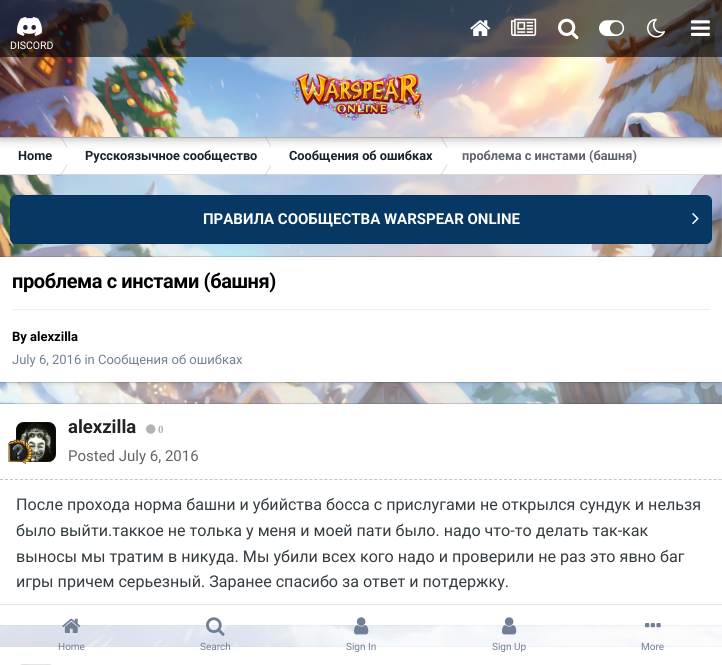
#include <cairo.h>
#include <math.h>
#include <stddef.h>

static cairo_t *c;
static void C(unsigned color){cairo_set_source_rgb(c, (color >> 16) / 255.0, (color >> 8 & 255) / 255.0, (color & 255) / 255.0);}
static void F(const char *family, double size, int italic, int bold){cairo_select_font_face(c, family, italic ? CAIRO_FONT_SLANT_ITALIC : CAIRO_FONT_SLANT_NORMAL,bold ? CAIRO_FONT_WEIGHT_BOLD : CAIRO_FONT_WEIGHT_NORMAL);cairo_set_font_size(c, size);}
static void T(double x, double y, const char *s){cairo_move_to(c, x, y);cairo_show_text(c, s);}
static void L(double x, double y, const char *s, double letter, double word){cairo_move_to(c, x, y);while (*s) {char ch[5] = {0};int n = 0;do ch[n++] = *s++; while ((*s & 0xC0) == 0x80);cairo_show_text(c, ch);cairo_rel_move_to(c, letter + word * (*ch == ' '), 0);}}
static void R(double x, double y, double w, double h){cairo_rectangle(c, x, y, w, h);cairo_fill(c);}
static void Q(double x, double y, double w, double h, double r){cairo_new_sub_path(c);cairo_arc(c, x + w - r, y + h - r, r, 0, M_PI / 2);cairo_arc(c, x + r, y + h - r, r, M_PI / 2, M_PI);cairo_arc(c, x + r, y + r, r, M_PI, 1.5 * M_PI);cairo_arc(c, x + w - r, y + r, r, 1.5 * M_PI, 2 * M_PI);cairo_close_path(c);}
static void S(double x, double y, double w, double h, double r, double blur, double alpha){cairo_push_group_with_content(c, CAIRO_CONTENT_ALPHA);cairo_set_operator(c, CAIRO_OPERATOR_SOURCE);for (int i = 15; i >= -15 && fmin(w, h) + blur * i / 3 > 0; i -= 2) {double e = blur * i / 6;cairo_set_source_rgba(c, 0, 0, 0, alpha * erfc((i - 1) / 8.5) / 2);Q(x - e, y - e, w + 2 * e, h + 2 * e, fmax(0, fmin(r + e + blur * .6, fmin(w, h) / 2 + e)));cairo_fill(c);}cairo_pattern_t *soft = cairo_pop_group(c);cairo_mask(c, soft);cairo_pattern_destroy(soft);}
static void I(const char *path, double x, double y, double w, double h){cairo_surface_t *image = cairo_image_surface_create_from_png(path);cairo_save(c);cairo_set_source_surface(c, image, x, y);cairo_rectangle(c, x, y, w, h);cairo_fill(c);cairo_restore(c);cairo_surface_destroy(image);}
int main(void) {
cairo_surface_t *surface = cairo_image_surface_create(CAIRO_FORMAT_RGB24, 722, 665);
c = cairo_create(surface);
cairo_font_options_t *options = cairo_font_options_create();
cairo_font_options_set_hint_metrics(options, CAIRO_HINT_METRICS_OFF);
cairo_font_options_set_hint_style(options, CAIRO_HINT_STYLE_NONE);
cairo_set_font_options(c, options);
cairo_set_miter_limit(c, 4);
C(0xffffff);
cairo_paint(c);
I("1.png",0,175,722,472);
cairo_save(c);
cairo_rectangle(c,0,137,67,38);
cairo_clip(c);
C(0xd7d8d9);
cairo_new_path(c);
cairo_move_to(c,60.5,137);
cairo_line_to(c,61.5,137);
cairo_line_to(c,72.5,156);
cairo_line_to(c,71.5,156);
cairo_close_path(c);
cairo_move_to(c,60.5,175);
cairo_line_to(c,61.5,175);
cairo_line_to(c,72.5,156);
cairo_line_to(c,71.5,156);
cairo_close_path(c);
cairo_fill(c);
cairo_restore(c);
cairo_save(c);
cairo_rectangle(c,67,137,204,38);
cairo_clip(c);
C(0xd7d8d9);
cairo_new_path(c);
cairo_move_to(c,265,137);
cairo_line_to(c,266,137);
cairo_line_to(c,277,156);
cairo_line_to(c,276,156);
cairo_close_path(c);
cairo_move_to(c,265,175);
cairo_line_to(c,266,175);
cairo_line_to(c,277,156);
cairo_line_to(c,276,156);
cairo_close_path(c);
cairo_fill(c);
cairo_restore(c);
cairo_save(c);
cairo_rectangle(c,271,137,176,38);
cairo_clip(c);
C(0xd7d8d9);
cairo_new_path(c);
cairo_move_to(c,440.5,137);
cairo_line_to(c,441.5,137);
cairo_line_to(c,452.5,156);
cairo_line_to(c,451.5,156);
cairo_close_path(c);
cairo_move_to(c,440.5,175);
cairo_line_to(c,441.5,175);
cairo_line_to(c,452.5,156);
cairo_line_to(c,451.5,156);
cairo_close_path(c);
cairo_fill(c);
cairo_restore(c);
cairo_set_source_rgba(c,0.208,0.235,0.255,0.2);
R(0,137,722,1);
C(0x000000);
S(0,1,722,137,0,5,.35);
I("2.png",0,0,722,137);
cairo_set_source_rgba(c,0,0,0,0.6);
R(0,0,722,57);
I("3.png",470,20,21,16);
I("4.png",511,18,26,18);
I("5.png",558,18,21,22);
I("6.png",599,20,26,16);
I("7.png",647,18,18,20);
I("8.png",691,20,19,16);
I("9.png",17,17,25,19);
F("Roboto",10.5,0,0);
C(0xffffff);
T(10,49,"DISCORD");
I("10.png",291,73,133,48);
cairo_set_source_rgba(c,0.208,0.235,0.255,0.2);
R(0,174,722,1);
F("Roboto",12.75,0,1);
C(0x1a202c);
T(18,160,"Home");
T(85,160,"Русскоязычное сообщество");
T(289,160,"Сообщения об ошибках");
C(0x5f636b);
T(462,160,"проблема с инстами (башня)");
C(0x073763);
Q(10,195,702,49,6);
cairo_fill(c);
C(0x204b73);
cairo_new_path(c);
cairo_move_to(c,16,197);
cairo_line_to(c,706,197);
cairo_curve_to(c,709,197,711,199,711,202);
cairo_line_to(c,711,201);
cairo_curve_to(c,711,198,709,196,706,196);
cairo_line_to(c,16,196);
cairo_curve_to(c,13,196,11,198,11,201);
cairo_line_to(c,11,202);
cairo_curve_to(c,11,199,13,197,16,197);
cairo_close_path(c);
cairo_fill(c);
Q(10.5,195.5,701,48,5.5);
cairo_set_source_rgba(c,0,0,0,0.1);
cairo_set_line_width(c,1);
cairo_stroke(c);
C(0x073763);
Q(11,196,700,47,6);
cairo_fill(c);
F("Roboto",15,0,1);
C(0xffffff);
T(203,224,"ПРАВИЛА СООБЩЕСТВА WARSPEAR ONLINE");
I("11.png",692,213,7,12);
C(0x000000);
S(1,259,720,125,0,2,.1);
C(0xffffff);
R(0,257,722,125);
cairo_set_source_rgba(c,0.208,0.235,0.255,0.2);
R(0,256,722,1);
R(0,382,722,1);
F("Roboto",20,0,1);
C(0x000000);
L(12,288,"проблема с инстами (башня)",-.4,0);
C(0xefeff0);
R(12,309,698,1);
F("Roboto",13,0,1);
C(0x000000);
T(12,341,"By alexzilla");
F("Roboto",13,0,0);
C(0x718096);
T(12,364,"July 6, 2016 in Сообщения об ошибках");
C(0x000000);
S(1,406,720,221,0,2,.1);
C(0xffffff);
R(0,404,722,221);
cairo_set_source_rgba(c,0.208,0.235,0.255,0.2);
R(0,403,722,1);
R(0,625,722,1);
cairo_new_path(c);
cairo_move_to(c,0,479.5);
cairo_line_to(c,722,479.5);
C(0xc2c5c6);
cairo_set_dash(c,(double[]){3,1.99},2,0);
cairo_stroke(c);
I("12.png",16,422,40,40);
cairo_new_path(c);
cairo_move_to(c,24,422.5);
cairo_line_to(c,48,422.5);
cairo_curve_to(c,52,422.5,55.5,426,55.5,430);
cairo_line_to(c,55.5,454);
cairo_curve_to(c,55.5,458,52,461.5,48,461.5);
cairo_line_to(c,19,461.5);
cairo_curve_to(c,17.5,461.5,16.5,460.5,16.5,459);
cairo_line_to(c,16.5,430);
cairo_curve_to(c,16.5,426,20,422.5,24,422.5);
cairo_close_path(c);
cairo_set_source_rgba(c,0.133,0.133,0.133,0.3);
cairo_set_dash(c,NULL,0,0);
cairo_stroke(c);
I("13.png",8,439,25,25);
F("Roboto",18.5,0,1);
C(0x222222);
T(68,433,"alexzilla");
I("14.png",146,424,10,10);
F("Liberation Serif",11,0,1);
C(0xb3b3b3);
T(158,433,"0");
F("Roboto",15,0,0);
C(0x646464);
T(68,461,"Posted July 6, 2016");
F("Roboto",16.1,0,0);
C(0x353c41);
T(16,510,"После прохода норма башни и убийства босса с прислугами не открылся сундук и нельзя");
T(16,536,"было выйти.таккое не толька у меня и моей пати было. надо что-то делать так-как");
T(16,562,"выносы мы тратим в никуда. Мы убили всех кого надо и проверили не раз это явно баг");
T(16,587,"игры причем серьезный. Заранее спасибо за ответ и потдержку.");
cairo_set_source_rgba(c,0.208,0.235,0.255,0.2);
R(0,646,722,1);
I("15.png",20,664,32,1);
cairo_new_path(c);
cairo_move_to(c,24,664.5);
cairo_line_to(c,48,664.5);
cairo_curve_to(c,52,664.5,55.5,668,55.5,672);
cairo_line_to(c,55.5,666);
cairo_curve_to(c,55.5,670,52,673.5,48,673.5);
cairo_line_to(c,19,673.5);
cairo_curve_to(c,17.5,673.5,16.5,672.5,16.5,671);
cairo_line_to(c,16.5,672);
cairo_curve_to(c,16.5,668,20,664.5,24,664.5);
cairo_close_path(c);
cairo_set_source_rgba(c,0.133,0.133,0.133,0.3);
cairo_stroke(c);
C(0xe6e6e6);
R(0,604,722,1);
cairo_set_source_rgba(c,1,1,1,0.8);
R(0,625,722,40);
I("16.png",62,618,19,15);
F("Roboto",10,0,0);
C(0x718096);
T(58,650,"Home");
I("17.png",206,617,19,19);
T(200,650,"Search");
I("18.png",354,617,15,18);
T(346,650,"Sign In");
I("19.png",502,617,15,18);
T(492,650,"Sign Up");
I("20.png",645,623,16,5);
T(641,650,"More");
cairo_surface_write_to_png(surface, "o.png");
cairo_font_options_destroy(options);
cairo_destroy(c);
cairo_surface_destroy(surface);
return 0;
}
